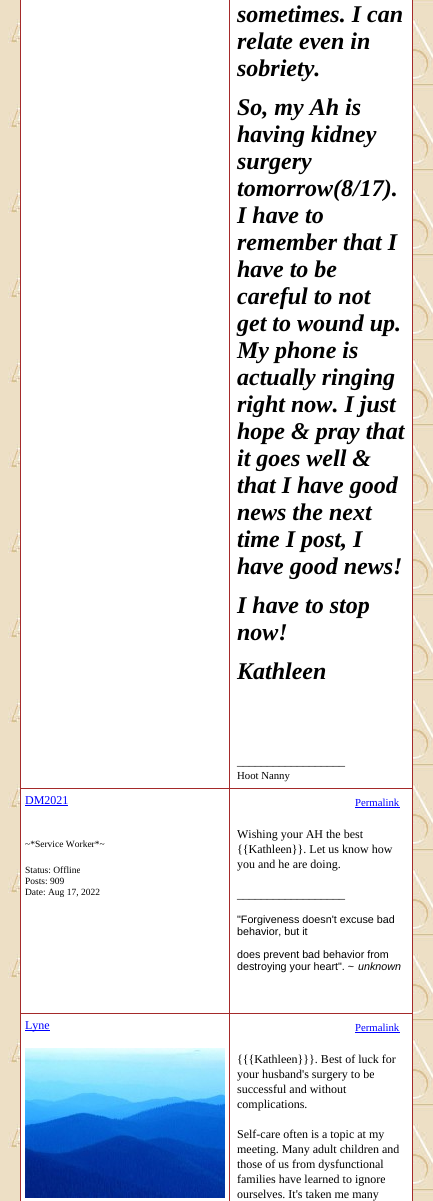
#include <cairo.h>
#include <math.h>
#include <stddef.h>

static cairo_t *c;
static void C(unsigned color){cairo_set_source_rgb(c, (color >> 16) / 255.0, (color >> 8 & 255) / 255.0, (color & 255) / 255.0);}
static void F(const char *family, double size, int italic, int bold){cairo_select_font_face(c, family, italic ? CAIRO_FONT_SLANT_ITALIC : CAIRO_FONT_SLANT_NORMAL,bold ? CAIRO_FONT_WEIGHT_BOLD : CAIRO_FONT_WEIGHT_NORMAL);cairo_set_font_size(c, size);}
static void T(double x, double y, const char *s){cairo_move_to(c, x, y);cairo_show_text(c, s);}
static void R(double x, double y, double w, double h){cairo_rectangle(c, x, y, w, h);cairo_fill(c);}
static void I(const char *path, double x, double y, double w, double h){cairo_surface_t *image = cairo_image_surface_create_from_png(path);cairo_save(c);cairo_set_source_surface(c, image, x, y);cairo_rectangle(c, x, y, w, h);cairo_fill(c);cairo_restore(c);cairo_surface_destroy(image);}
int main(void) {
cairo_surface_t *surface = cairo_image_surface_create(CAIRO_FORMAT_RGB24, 433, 1201);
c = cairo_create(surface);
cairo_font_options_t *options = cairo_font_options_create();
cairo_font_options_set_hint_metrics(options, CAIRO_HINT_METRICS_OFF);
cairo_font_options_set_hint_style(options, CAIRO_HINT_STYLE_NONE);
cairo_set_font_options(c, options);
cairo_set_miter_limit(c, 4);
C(0xffffff);
cairo_paint(c);
I("1.png",0,0,433,1201);
C(0xa52a2a);
R(412,0,1,1201);
R(20,0,1,1201);
C(0xffffff);
R(21,0,208,788);
R(230,0,182,788);
C(0xa52a2a);
R(229,788,184,1);
R(229,1013,184,1);
R(229,1013,1,188);
R(20,1013,210,1);
R(229,788,1,226);
R(20,788,210,1);
R(229,0,1,789);
F("Liberation Serif",24,1,1);
C(0x000000);
T(237,22,"sometimes. I can");
T(237,49,"relate even in");
T(237,76,"sobriety.");
T(237,115,"So, my Ah is");
T(237,142,"having kidney");
T(237,169,"surgery");
T(237,196,"tomorrow(8/17).");
T(237,223,"I have to");
T(237,250,"remember that I");
T(237,277,"have to be");
T(237,304,"careful to not");
T(237,331,"get to wound up.");
T(237,358,"My phone is");
T(237,385,"actually ringing");
T(237,412,"right now. I just");
T(237,439,"hope & pray that");
T(237,466,"it goes well &");
T(237,493,"that I have good");
T(237,520,"news the next");
T(237,547,"time I post, I");
T(237,574,"have good news!");
T(237,613,"I have to stop");
T(237,640,"now!");
T(237,679,"Kathleen");
F("Liberation Serif",12,0,0);
T(237,765,"__________________");
F("Liberation Serif",10.75,0,0);
T(237,779,"Hoot Nanny");
C(0xffffff);
R(21,789,208,224);
F("Liberation Serif",12,0,0);
C(0x0000ff);
T(25,804,"DM2021");
R(25,805,43,1);
F("Liberation Serif",9.5,0,0);
C(0x000000);
T(25,847,"~*Service Worker*~");
T(25,873,"Status: Offline");
T(25,884,"Posts: 909");
T(25,895,"Date: Aug 17, 2022");
C(0xffffff);
R(230,789,182,224);
F("Liberation Serif",10.75,0,0);
C(0x0000ff);
T(355,806,"Permalink");
R(355,807,45,1);
F("Liberation Serif",12,0,0);
C(0x000000);
T(237,838,"Wishing your AH the best");
T(237,853,"{{Kathleen}}. Let us know how");
T(237,868,"you and he are doing.");
T(237,898,"__________________");
F("Liberation Sans",10.75,0,0);
T(237,923,"\"Forgiveness doesn't excuse bad");
T(237,935,"behavior, but it");
T(237,958,"does prevent bad behavior from");
T(237,970,"destroying your heart\". ~");
F("Liberation Sans",10.75,1,0);
T(358,970,"unknown");
C(0xffffff);
R(21,1014,208,187);
C(0x0000ff);
R(25,1030,25,1);
F("Liberation Serif",12,0,0);
T(25,1029,"Lyne");
I("2.png",25,1048,200,150);
C(0xffffff);
R(230,1014,182,187);
F("Liberation Serif",10.75,0,0);
C(0x0000ff);
T(355,1031,"Permalink");
R(355,1032,45,1);
F("Liberation Serif",12,0,0);
C(0x000000);
T(237,1063,"{{{Kathleen}}}. Best of luck for");
T(237,1078,"your husband's surgery to be");
T(237,1093,"successful and without");
T(237,1108,"complications.");
T(237,1138,"Self-care often is a topic at my");
T(237,1153,"meeting. Many adult children and");
T(237,1168,"those of us from dysfunctional");
T(237,1183,"families have learned to ignore");
T(237,1198,"ourselves. It's taken me many");
cairo_surface_write_to_png(surface, "o.png");
cairo_font_options_destroy(options);
cairo_destroy(c);
cairo_surface_destroy(surface);
return 0;
}
